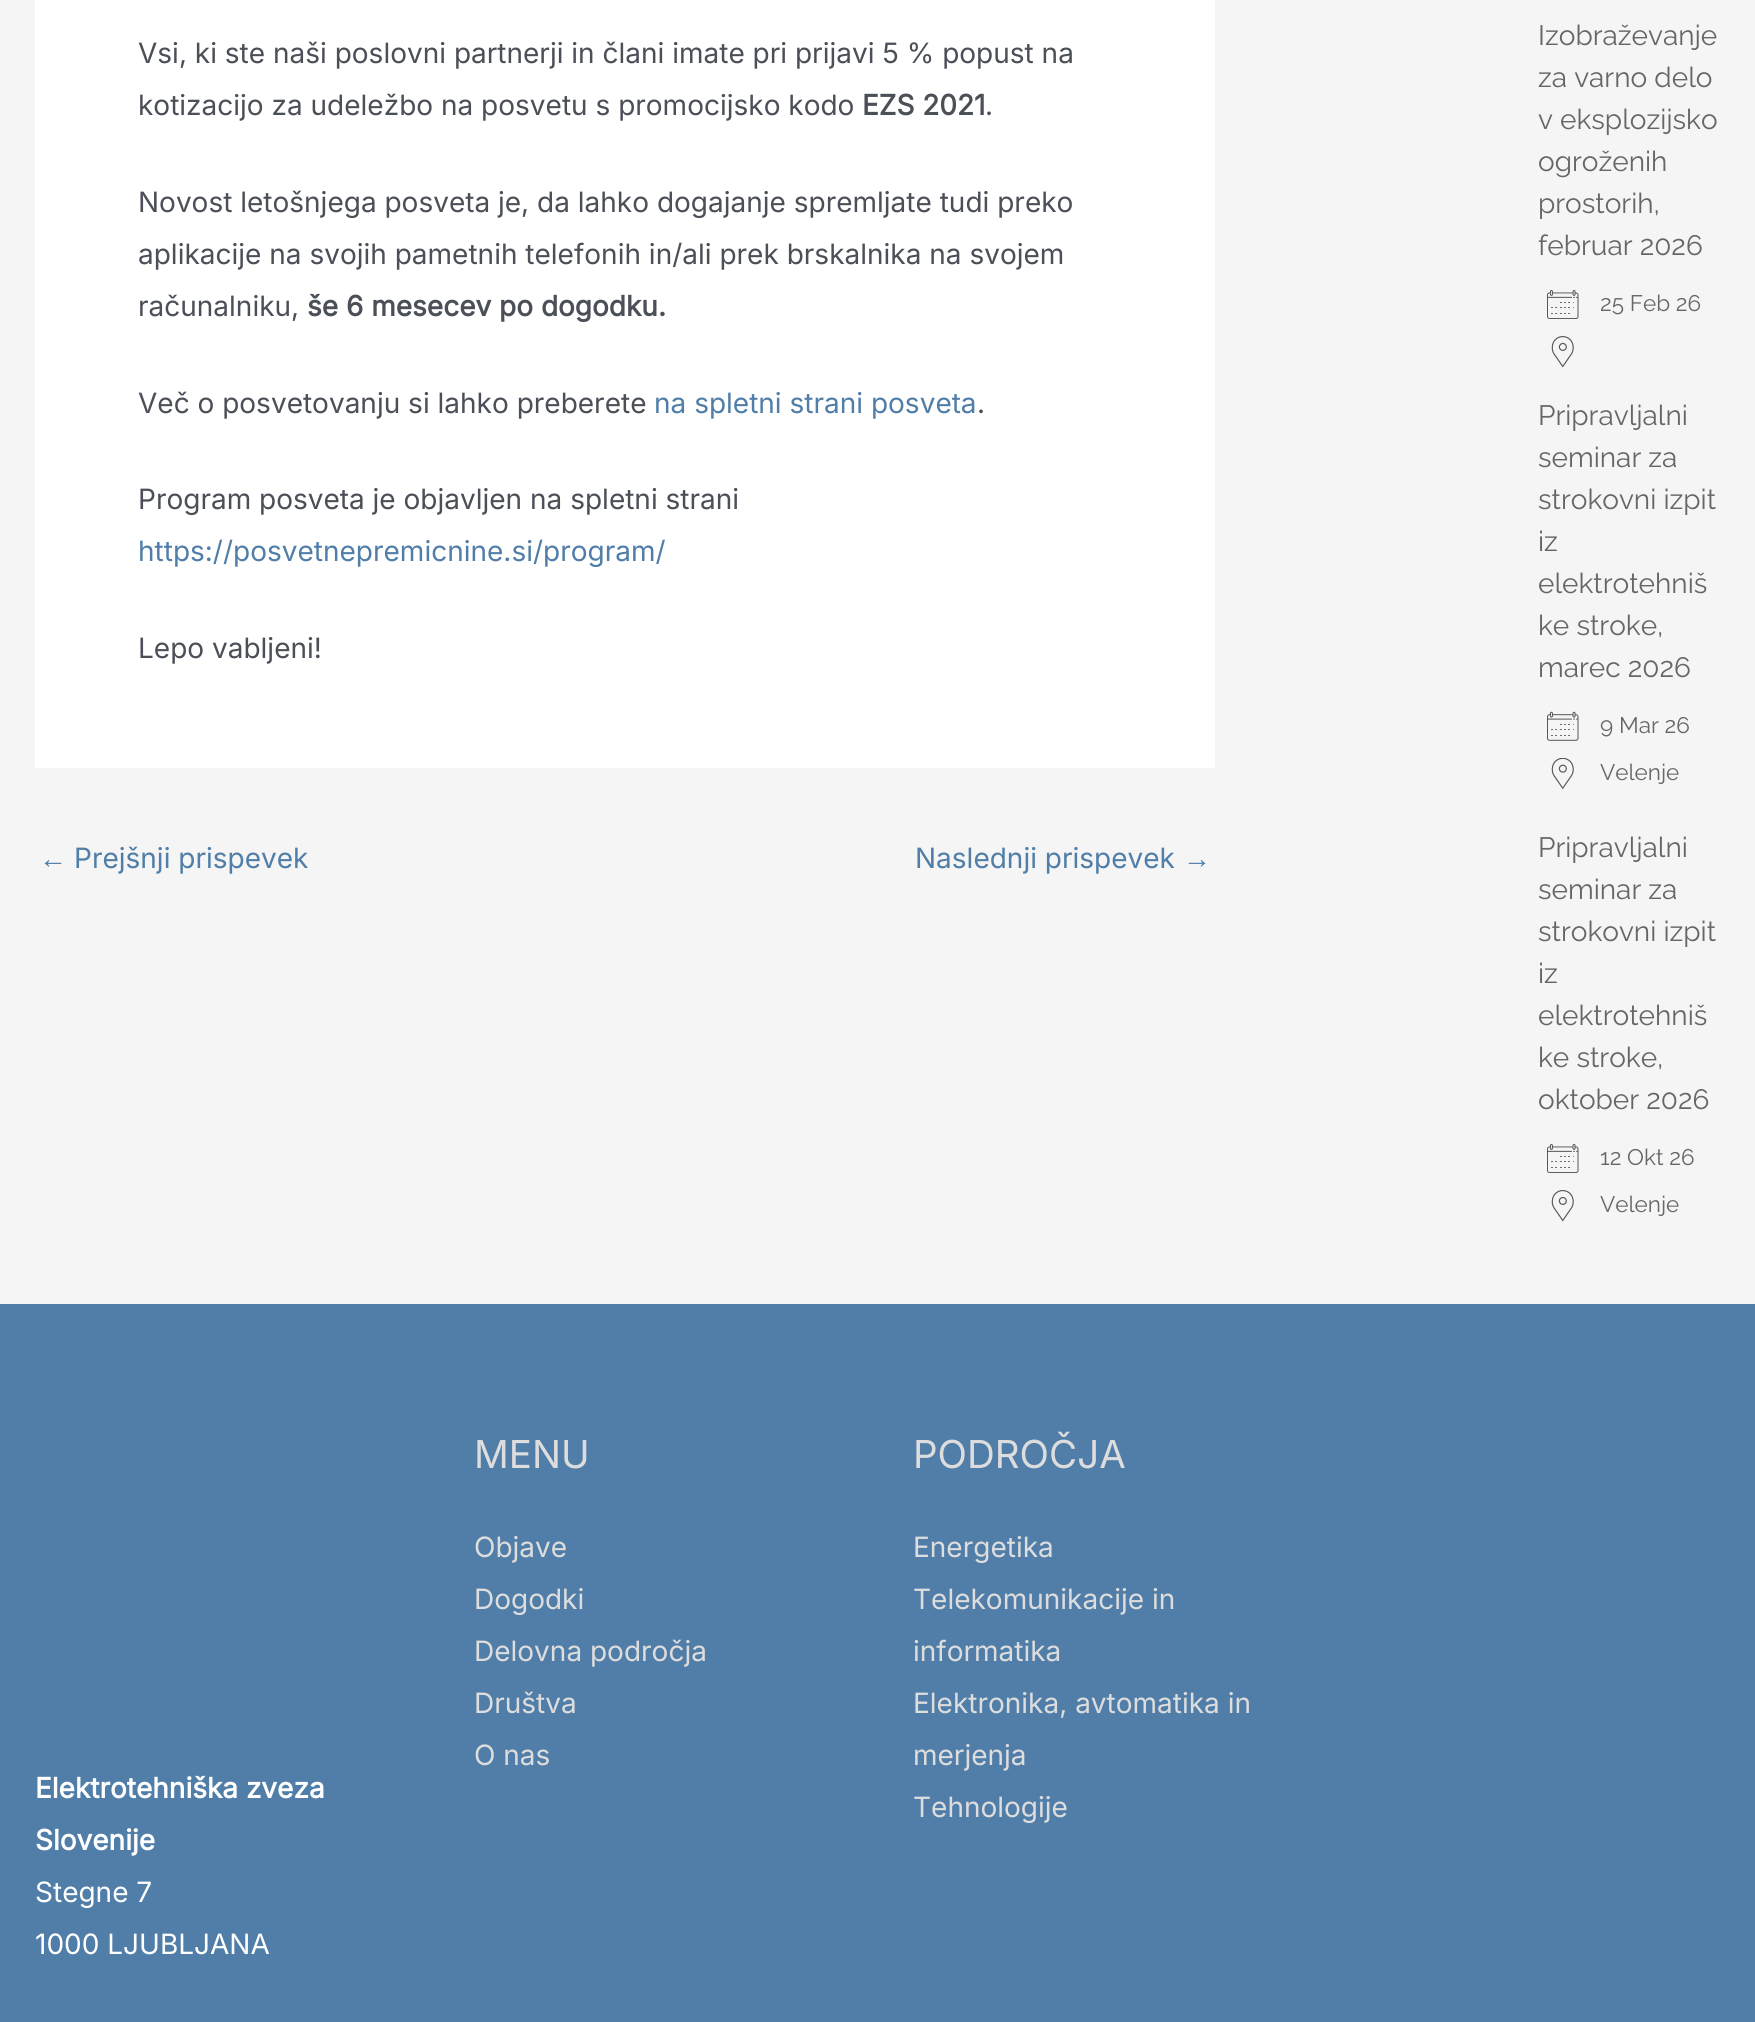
#include <cairo.h>
#include <math.h>
#include <stddef.h>

static cairo_t *c;
static void C(unsigned color){cairo_set_source_rgb(c, (color >> 16) / 255.0, (color >> 8 & 255) / 255.0, (color & 255) / 255.0);}
static void F(const char *family, double size, int italic, int bold){cairo_select_font_face(c, family, italic ? CAIRO_FONT_SLANT_ITALIC : CAIRO_FONT_SLANT_NORMAL,bold ? CAIRO_FONT_WEIGHT_BOLD : CAIRO_FONT_WEIGHT_NORMAL);cairo_set_font_size(c, size);}
static void T(double x, double y, const char *s){cairo_move_to(c, x, y);cairo_show_text(c, s);}
static void R(double x, double y, double w, double h){cairo_rectangle(c, x, y, w, h);cairo_fill(c);}
static void I(const char *path, double x, double y, double w, double h){cairo_surface_t *image = cairo_image_surface_create_from_png(path);cairo_save(c);cairo_set_source_surface(c, image, x, y);cairo_rectangle(c, x, y, w, h);cairo_fill(c);cairo_restore(c);cairo_surface_destroy(image);}
int main(void) {
cairo_surface_t *surface = cairo_image_surface_create(CAIRO_FORMAT_RGB24, 1755, 2022);
c = cairo_create(surface);
cairo_font_options_t *options = cairo_font_options_create();
cairo_font_options_set_hint_metrics(options, CAIRO_HINT_METRICS_OFF);
cairo_font_options_set_hint_style(options, CAIRO_HINT_STYLE_NONE);
cairo_set_font_options(c, options);
cairo_set_miter_limit(c, 4);
C(0xf5f5f5);
cairo_paint(c);
C(0xffffff);
R(35,0,1180,768);
F("Inter",28,0,0);
C(0x4b4f58);
T(138,63,"Vsi, ki ste naši poslovni partnerji in člani imate pri prijavi 5 % popust na");
T(138,115,"kotizacijo za udeležbo na posvetu s promocijsko kodo");
F("Inter",28,0,1);
T(862,115,"EZS 2021");
F("Inter",28,0,0);
T(985,115,".");
T(138,212,"Novost letošnjega posveta je, da lahko dogajanje spremljate tudi preko");
T(138,264,"aplikacije na svojih pametnih telefonih in/ali prek brskalnika na svojem");
T(138,316,"računalniku,");
F("Inter",28,0,1);
T(307,316,"še 6 mesecev po dogodku.");
F("Inter",28,0,0);
T(138,413,"Več o posvetovanju si lahko preberete");
C(0x507ea8);
T(654,413,"na spletni strani posveta");
C(0x4b4f58);
T(977,413,".");
T(138,509,"Program posveta je objavljen na spletni strani");
C(0x507ea8);
T(138,561,"https://posvetnepremicnine.si/program/");
C(0x4b4f58);
T(138,658,"Lepo vabljeni!");
F("Liberation Sans",28,0,0);
C(0x507ea8);
T(39,868,"←");
F("Inter",28,0,0);
T(74,868,"Prejšnji prispevek");
T(915,868,"Naslednji prispevek");
F("Liberation Sans",28,0,0);
T(1183,868,"→");
F("Raleway",28,0,0);
C(0x666666);
T(1538,45,"Izobraževanje");
T(1538,87,"za varno delo");
T(1538,129,"v eksplozijsko");
T(1538,171,"ogroženih");
T(1538,213,"prostorih,");
T(1538,255,"februar 2026");
I("1.png",1547,290,32,29);
F("Raleway",22.5,0,0);
T(1600,311,"25 Feb 26");
I("2.png",1551,336,23,32);
F("Raleway",28,0,0);
T(1538,425,"Pripravljalni");
T(1538,467,"seminar za");
T(1538,509,"strokovni izpit");
T(1538,551,"iz");
T(1538,593,"elektrotehniš");
T(1538,635,"ke stroke,");
T(1538,677,"marec 2026");
I("3.png",1547,711,32,30);
F("Raleway",22.5,0,0);
T(1600,733,"9 Mar 26");
I("4.png",1551,758,23,31);
T(1600,780,"Velenje");
F("Raleway",28,0,0);
T(1538,857,"Pripravljalni");
T(1538,899,"seminar za");
T(1538,941,"strokovni izpit");
T(1538,983,"iz");
T(1538,1025,"elektrotehniš");
T(1538,1067,"ke stroke,");
T(1538,1109,"oktober 2026");
I("1.png",1547,1144,32,29);
F("Raleway",22.5,0,0);
T(1600,1165,"12 Okt 26");
I("2.png",1551,1190,23,32);
T(1600,1212,"Velenje");
C(0x507ea8);
R(0,1304,1755,718);
F("Inter",38.5,0,0);
C(0xdddddd);
T(474,1468,"MENU");
F("Inter",28,0,0);
T(474,1557,"Objave");
T(474,1609,"Dogodki");
T(474,1661,"Delovna področja");
T(474,1713,"Društva");
T(474,1765,"O nas");
F("Inter",38.5,0,0);
T(913,1468,"PODROČJA");
F("Inter",28,0,0);
T(913,1557,"Energetika");
T(913,1609,"Telekomunikacije in");
T(913,1661,"informatika");
T(913,1713,"Elektronika, avtomatika in");
T(913,1765,"merjenja");
T(913,1817,"Tehnologije");
F("Inter",28,0,1);
C(0xffffff);
T(35,1798,"Elektrotehniška zveza");
T(35,1850,"Slovenije");
F("Inter",28,0,0);
T(35,1902,"Stegne 7");
T(35,1954,"1000 LJUBLJANA");
cairo_surface_write_to_png(surface, "o.png");
cairo_font_options_destroy(options);
cairo_destroy(c);
cairo_surface_destroy(surface);
return 0;
}
